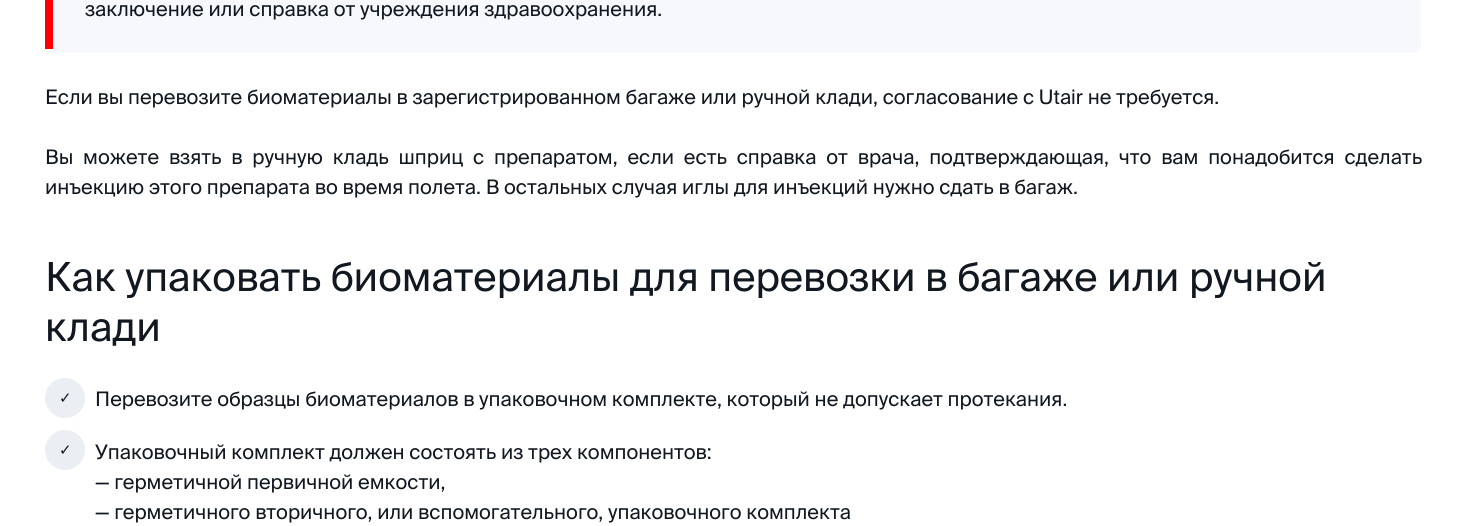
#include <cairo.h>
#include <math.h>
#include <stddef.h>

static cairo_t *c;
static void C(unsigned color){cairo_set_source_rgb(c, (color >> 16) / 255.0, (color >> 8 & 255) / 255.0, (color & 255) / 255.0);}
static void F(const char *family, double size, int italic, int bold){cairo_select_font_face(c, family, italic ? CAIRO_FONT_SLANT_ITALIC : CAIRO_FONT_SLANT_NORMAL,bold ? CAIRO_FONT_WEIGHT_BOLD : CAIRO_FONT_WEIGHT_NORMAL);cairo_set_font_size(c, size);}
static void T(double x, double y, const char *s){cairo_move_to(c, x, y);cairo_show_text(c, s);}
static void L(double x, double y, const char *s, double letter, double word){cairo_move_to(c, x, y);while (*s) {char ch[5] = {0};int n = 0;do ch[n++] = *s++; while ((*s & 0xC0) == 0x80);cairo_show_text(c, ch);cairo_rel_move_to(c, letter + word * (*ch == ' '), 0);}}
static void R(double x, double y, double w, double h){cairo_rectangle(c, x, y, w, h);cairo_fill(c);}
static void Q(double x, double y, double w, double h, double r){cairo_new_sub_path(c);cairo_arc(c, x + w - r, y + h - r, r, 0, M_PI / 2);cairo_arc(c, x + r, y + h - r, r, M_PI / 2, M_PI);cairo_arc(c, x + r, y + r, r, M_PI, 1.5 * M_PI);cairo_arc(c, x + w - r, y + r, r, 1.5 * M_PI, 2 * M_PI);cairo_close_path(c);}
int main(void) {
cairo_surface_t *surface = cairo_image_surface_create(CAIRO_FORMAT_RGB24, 1466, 526);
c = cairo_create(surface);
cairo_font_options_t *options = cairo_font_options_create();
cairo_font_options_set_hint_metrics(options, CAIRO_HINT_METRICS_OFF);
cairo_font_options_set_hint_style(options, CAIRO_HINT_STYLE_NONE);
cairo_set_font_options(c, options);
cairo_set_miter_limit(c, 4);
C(0xffffff);
cairo_paint(c);
C(0xf6f8fc);
Q(45,-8,1376,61,8);
cairo_fill(c);
C(0xff0000);
R(45,0,8,49);
F("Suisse",20,0,0);
C(0x111820);
T(85,16,"заключение или справка от учреждения здравоохранения.");
T(45,104,"Если вы перевозите биоматериалы в зарегистрированном багаже или ручной клади, согласование с Utair не требуется.");
L(45,164,"Вы можете взять в ручную кладь шприц с препаратом, если есть справка от врача, подтверждающая, что вам понадобится сделать",0,5.1);
T(45,194,"инъекцию этого препарата во время полета. В остальных случая иглы для инъекций нужно сдать в багаж.");
F("Suisse",40,0,0);
T(45,291,"Как упаковать биоматериалы для перевозки в багаже или ручной");
T(45,341,"клади");
C(0xebeef3);
cairo_new_path(c);
cairo_arc(c,65,398,20,0,2 * M_PI);
cairo_fill(c);
F("DejaVu Sans",15,0,0);
C(0x111820);
T(59,403,"✓");
F("Suisse",20,0,0);
T(95,406,"Перевозите образцы биоматериалов в упаковочном комплекте, который не допускает протекания.");
C(0xebeef3);
cairo_new_path(c);
cairo_arc(c,65,450,20,0,2 * M_PI);
cairo_fill(c);
F("DejaVu Sans",15,0,0);
C(0x111820);
T(59,455,"✓");
F("Suisse",20,0,0);
T(95,459,"Упаковочный комплект должен состоять из трех компонентов:");
T(95,489,"— герметичной первичной емкости,");
T(95,519,"— герметичного вторичного, или вспомогательного, упаковочного комплекта");
cairo_surface_write_to_png(surface, "o.png");
cairo_font_options_destroy(options);
cairo_destroy(c);
cairo_surface_destroy(surface);
return 0;
}
